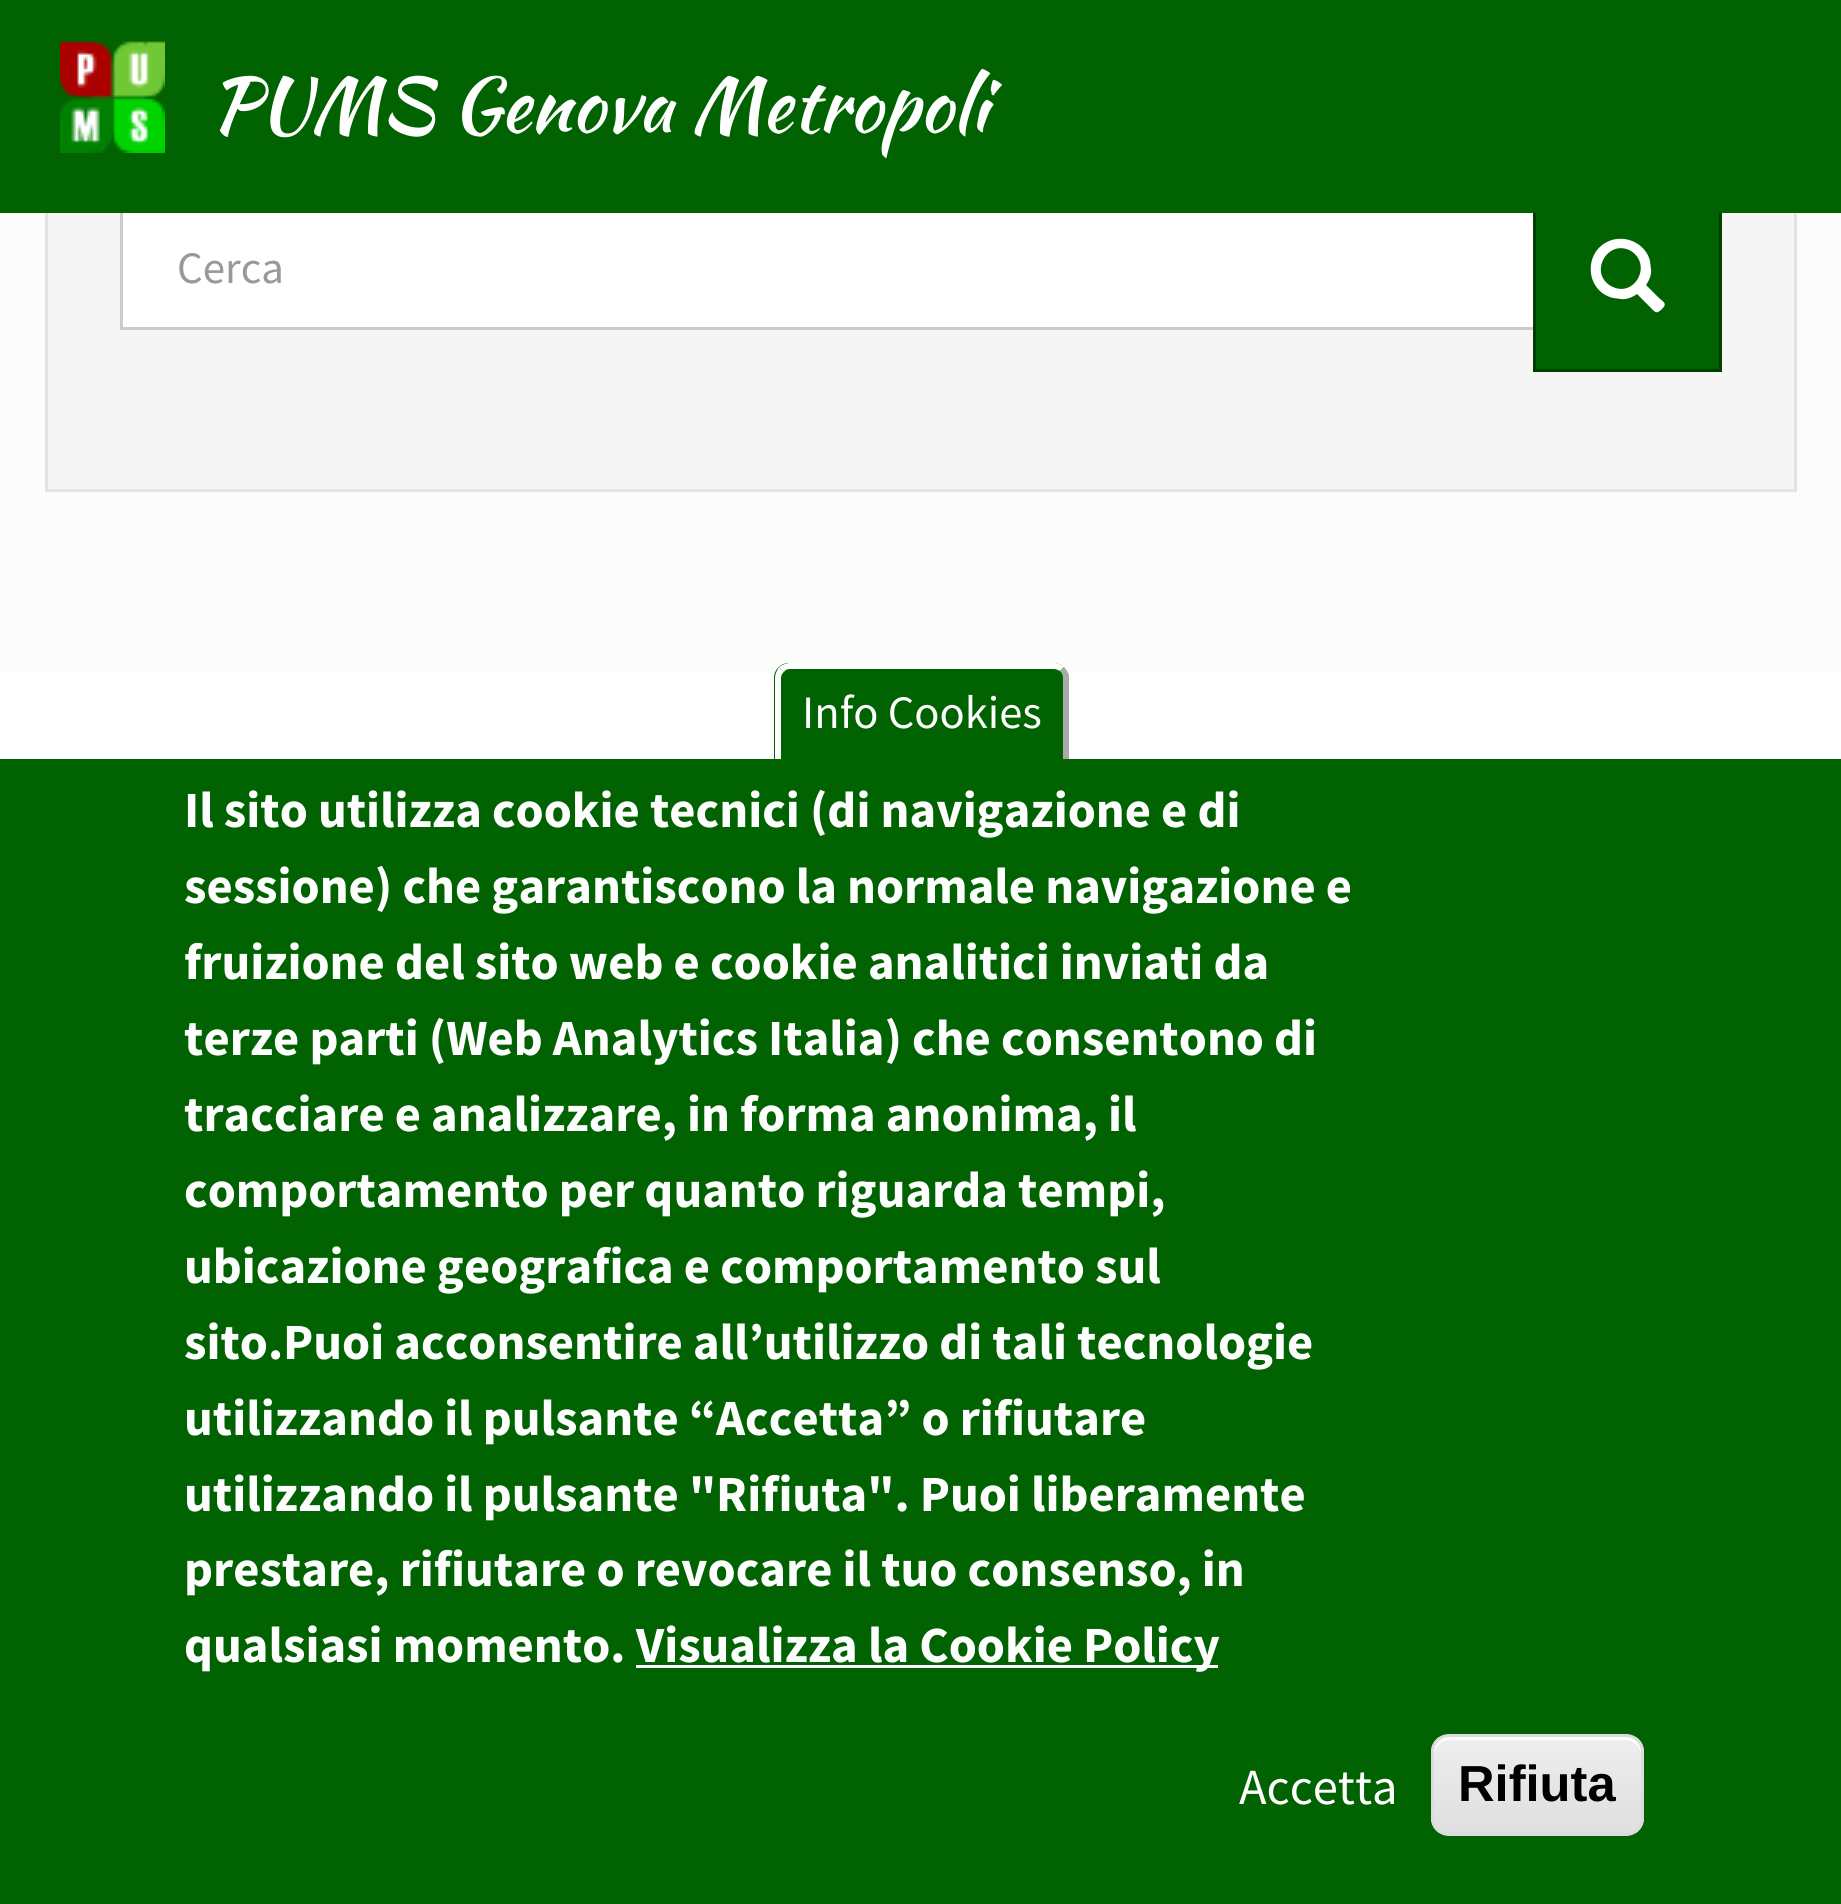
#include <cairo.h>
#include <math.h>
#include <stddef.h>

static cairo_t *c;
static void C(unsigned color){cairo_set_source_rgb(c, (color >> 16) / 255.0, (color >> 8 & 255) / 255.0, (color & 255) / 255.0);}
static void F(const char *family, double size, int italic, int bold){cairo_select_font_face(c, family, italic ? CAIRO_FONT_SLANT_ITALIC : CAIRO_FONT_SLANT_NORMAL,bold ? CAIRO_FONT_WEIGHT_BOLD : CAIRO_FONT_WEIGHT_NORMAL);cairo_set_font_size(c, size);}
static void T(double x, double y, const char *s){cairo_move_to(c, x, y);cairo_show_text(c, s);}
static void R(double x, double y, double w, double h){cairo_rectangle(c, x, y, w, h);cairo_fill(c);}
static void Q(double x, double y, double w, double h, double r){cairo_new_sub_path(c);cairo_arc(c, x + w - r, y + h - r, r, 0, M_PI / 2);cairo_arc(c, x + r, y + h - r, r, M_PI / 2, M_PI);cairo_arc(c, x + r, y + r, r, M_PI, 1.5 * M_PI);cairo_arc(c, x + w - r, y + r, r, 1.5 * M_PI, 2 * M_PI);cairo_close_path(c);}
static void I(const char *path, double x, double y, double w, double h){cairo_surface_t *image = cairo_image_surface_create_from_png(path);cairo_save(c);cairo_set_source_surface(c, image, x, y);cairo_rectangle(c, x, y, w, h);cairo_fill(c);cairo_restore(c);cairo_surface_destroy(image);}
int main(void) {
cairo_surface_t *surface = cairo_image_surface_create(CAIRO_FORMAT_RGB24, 1841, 1904);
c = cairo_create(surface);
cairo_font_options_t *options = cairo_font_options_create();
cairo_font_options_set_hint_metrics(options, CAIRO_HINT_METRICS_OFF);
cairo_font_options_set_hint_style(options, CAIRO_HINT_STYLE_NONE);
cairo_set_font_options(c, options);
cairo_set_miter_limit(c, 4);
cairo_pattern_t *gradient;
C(0xffffff);
cairo_paint(c);
C(0xfcfcfc);
R(0,213,1841,459);
C(0xf5f5f5);
R(48,213,1746,276);
cairo_rectangle(c,46.5,-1.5,1749,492);
C(0xe3e3e3);
cairo_set_line_width(c,3);
cairo_stroke(c);
C(0xffffff);
R(123,213,1410,114);
cairo_rectangle(c,121.5,202.5,1413,126);
C(0xcccccc);
cairo_stroke(c);
C(0x006200);
R(1536,213,183,156);
cairo_rectangle(c,1534.5,202.5,186,168);
C(0x003f00);
cairo_stroke(c);
C(0x006200);
R(0,0,1841,213);
I("1.png",60,41,105,112);
F("Kaushan Script",75,0,0);
C(0xffffff);
T(210,131,"PUMS Genova Metropoli");
F("Source Sans Pro",45,0,0);
C(0x999999);
T(177,283,"Cerca");
C(0xffffff);
cairo_new_path(c);
cairo_move_to(c,1609,241);
cairo_curve_to(c,1626,234,1646,244,1650,261);
cairo_line_to(c,1651,269);
cairo_curve_to(c,1652,274,1649,281,1646,285);
cairo_line_to(c,1658,297);
cairo_curve_to(c,1663,302,1668,303,1662,309);
cairo_curve_to(c,1656,315,1655,312,1649,306);
cairo_line_to(c,1637,294);
cairo_curve_to(c,1633,297,1626,300,1621,299);
cairo_line_to(c,1613,298);
cairo_curve_to(c,1585,291,1583,252,1609,241);
cairo_close_path(c);
cairo_move_to(c,1631,251);
cairo_curve_to(c,1608,238,1588,273,1611,286);
cairo_curve_to(c,1634,299,1653,265,1631,251);
cairo_close_path(c);
cairo_fill(c);
C(0x006200);
R(0,759,1841,1145);
cairo_new_path(c);
cairo_move_to(c,789,663);
cairo_line_to(c,1053,663);
cairo_curve_to(c,1061.5,663,1068,669.5,1068,678);
cairo_line_to(c,1068,759);
cairo_line_to(c,774,759);
cairo_line_to(c,774,678);
cairo_curve_to(c,774,669.5,780.5,663,789,663);
cairo_close_path(c);
cairo_fill(c);
C(0xffffff);
cairo_new_path(c);
cairo_move_to(c,790,663);
cairo_line_to(c,1054,663);
cairo_curve_to(c,1058,663,1061,665,1064,667);
cairo_line_to(c,1060,671);
cairo_curve_to(c,1058,670,1056,669,1054,669);
cairo_line_to(c,790,669);
cairo_curve_to(c,787,669,785,670,784,672);
cairo_line_to(c,779,667);
cairo_curve_to(c,782,665,786,663,790,663);
cairo_close_path(c);
cairo_fill(c);
C(0xaaaaaa);
cairo_new_path(c);
cairo_move_to(c,1064,667);
cairo_curve_to(c,1066,669,1068,672,1069,675);
cairo_line_to(c,1069,759);
cairo_line_to(c,1063,759);
cairo_line_to(c,1063,678);
cairo_curve_to(c,1063,675,1062,673,1060,671);
cairo_close_path(c);
cairo_fill(c);
C(0xffffff);
cairo_new_path(c);
cairo_move_to(c,781,759);
cairo_line_to(c,775,759);
cairo_line_to(c,775,678);
cairo_curve_to(c,775,674,777,670,779,667);
cairo_line_to(c,784,672);
cairo_curve_to(c,782,673,781,676,781,678);
cairo_close_path(c);
cairo_fill(c);
F("Source Sans Pro",46.5,0,0);
T(802,728,"Info Cookies");
F("Source Sans Pro",50.65,0,1);
T(184,827,"Il sito utilizza cookie tecnici (di navigazione e di");
T(184,903,"sessione) che garantiscono la normale navigazione e");
T(184,979,"fruizione del sito web e cookie analitici inviati da");
T(184,1055,"terze parti (Web Analytics Italia) che consentono di");
T(184,1131,"tracciare e analizzare, in forma anonima, il");
T(184,1207,"comportamento per quanto riguarda tempi,");
T(184,1283,"ubicazione geografica e comportamento sul");
T(184,1359,"sito.Puoi acconsentire all’utilizzo di tali tecnologie");
T(184,1435,"utilizzando il pulsante “Accetta” o rifiutare");
T(184,1511,"utilizzando il pulsante \"Rifiuta\". Puoi liberamente");
T(184,1586,"prestare, rifiutare o revocare il tuo consenso, in");
T(184,1662,"qualsiasi momento.");
R(636,1665,582,3);
T(636,1662,"Visualizza la Cookie Policy");
F("Source Sans Pro",50.65,0,0);
T(1239,1804,"Accetta");
cairo_save(c);
Q(1431,1734,213,102,18);
cairo_clip(c);
gradient = cairo_pattern_create_linear(1538,1737,1538,1833);
cairo_pattern_add_color_stop_rgba(gradient,.05,0.929,0.929,0.929,1);
cairo_pattern_add_color_stop_rgba(gradient,1,0.875,0.875,0.875,1);
cairo_set_source(c,gradient);
cairo_pattern_destroy(gradient);
R(1431,1737,213,96);
cairo_restore(c);
cairo_new_path(c);
cairo_move_to(c,1449,1740);
cairo_line_to(c,1626,1740);
cairo_curve_to(c,1634,1740,1641,1747,1641,1755);
cairo_line_to(c,1641,1752);
cairo_curve_to(c,1641,1744,1634,1737,1626,1737);
cairo_line_to(c,1449,1737);
cairo_curve_to(c,1441,1737,1434,1744,1434,1752);
cairo_line_to(c,1434,1755);
cairo_curve_to(c,1434,1747,1441,1740,1449,1740);
cairo_close_path(c);
cairo_fill(c);
Q(1432.5,1735.5,210,99,16.5);
C(0xdcdcdc);
cairo_stroke(c);
F("Liberation Sans",50.65,0,1);
C(0x000000);
T(1458,1801,"Rifiuta");
cairo_surface_write_to_png(surface, "o.png");
cairo_font_options_destroy(options);
cairo_destroy(c);
cairo_surface_destroy(surface);
return 0;
}
